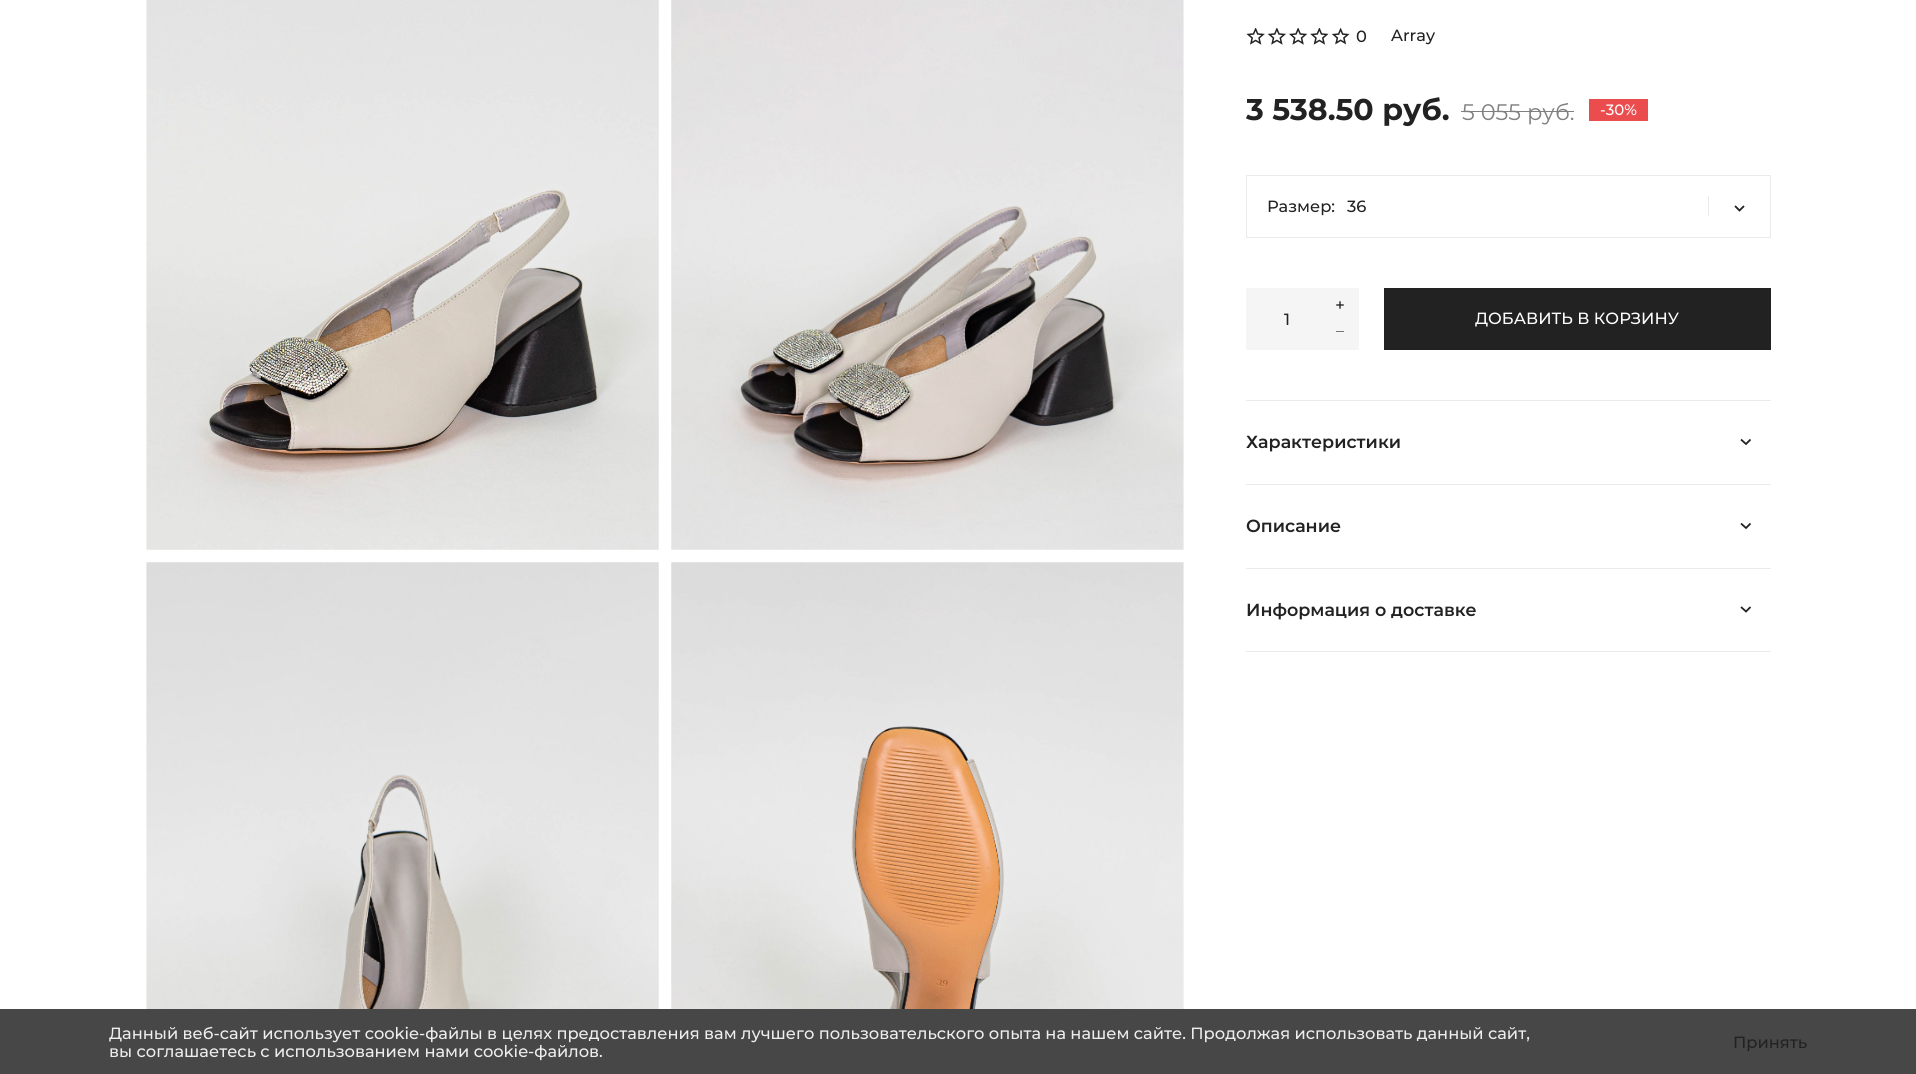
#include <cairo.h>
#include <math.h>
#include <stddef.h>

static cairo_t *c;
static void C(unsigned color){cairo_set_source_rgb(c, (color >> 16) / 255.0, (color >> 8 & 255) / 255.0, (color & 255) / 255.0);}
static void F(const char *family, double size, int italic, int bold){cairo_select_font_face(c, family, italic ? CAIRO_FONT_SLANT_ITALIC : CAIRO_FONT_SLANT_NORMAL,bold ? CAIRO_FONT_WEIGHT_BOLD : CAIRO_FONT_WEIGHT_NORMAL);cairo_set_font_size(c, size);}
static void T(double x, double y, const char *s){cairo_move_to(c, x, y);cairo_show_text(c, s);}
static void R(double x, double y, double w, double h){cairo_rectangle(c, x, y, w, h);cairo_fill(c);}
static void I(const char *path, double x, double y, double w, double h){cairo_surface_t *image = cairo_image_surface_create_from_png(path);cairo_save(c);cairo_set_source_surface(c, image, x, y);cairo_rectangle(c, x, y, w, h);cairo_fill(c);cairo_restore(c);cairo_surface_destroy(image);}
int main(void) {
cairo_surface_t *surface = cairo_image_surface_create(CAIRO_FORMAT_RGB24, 1916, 1074);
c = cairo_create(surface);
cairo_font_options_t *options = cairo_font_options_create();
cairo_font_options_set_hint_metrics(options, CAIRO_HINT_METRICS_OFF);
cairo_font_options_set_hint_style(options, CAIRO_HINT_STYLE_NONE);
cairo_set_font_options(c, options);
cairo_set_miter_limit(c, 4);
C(0xffffff);
cairo_paint(c);
I("1.png",146,0,513,550);
I("2.png",671,0,513,550);
I("3.png",146,562,513,447);
I("4.png",671,562,513,447);
I("5.png",1246,28,104,17);
F("Montserrat Medium",16.25,0,0);
C(0x222222);
T(1356,42,"0");
T(1391,41,"Array");
F("Montserrat",30,0,1);
T(1246,120,"3 538.50 руб.");
F("Montserrat",22.5,0,0);
C(0x808080);
T(1462,120,"5 055 руб.");
R(1461,111,113,1);
C(0xeb4d4f);
R(1589,99,59,22);
F("Montserrat Medium",15,0,0);
C(0xffffff);
T(1600,115,"-30%");
cairo_rectangle(c,1246.5,175.5,524,62);
C(0xeaeaea);
cairo_set_line_width(c,1);
cairo_stroke(c);
F("Montserrat Medium",16.25,0,0);
C(0x222222);
T(1267,212,"Размер:");
T(1347,212,"36");
C(0xeaeaea);
R(1708,196,1,20);
cairo_new_path(c);
cairo_move_to(c,1735,206);
cairo_line_to(c,1739.5,210.5);
cairo_line_to(c,1744,206);
C(0x222222);
cairo_set_line_width(c,1.8);
cairo_stroke(c);
C(0xf5f5f5);
R(1246,288,113,62);
I("6.png",1336,301,8,8);
C(0x222222);
T(1284,325,"1");
C(0x757575);
R(1336,331,8,1);
C(0x222222);
R(1384,288,387,62);
C(0xffffff);
T(1475,324,"ДОБАВИТЬ В КОРЗИНУ");
C(0xeaeaea);
R(1246,400,525,1);
R(1246,484,525,1);
F("Montserrat SemiBold",17.5,0,0);
C(0x222222);
T(1246,448,"Характеристики");
cairo_new_path(c);
cairo_move_to(c,1741,439.5);
cairo_line_to(c,1746,444);
cairo_line_to(c,1750.5,439.5);
cairo_stroke(c);
C(0xeaeaea);
R(1246,568,525,1);
C(0x222222);
T(1246,532,"Описание");
cairo_new_path(c);
cairo_move_to(c,1741,523.5);
cairo_line_to(c,1746,528);
cairo_line_to(c,1750.5,523.5);
cairo_stroke(c);
C(0xeaeaea);
R(1246,651,525,1);
C(0x222222);
T(1246,616,"Информация о доставке");
cairo_new_path(c);
cairo_move_to(c,1741,607);
cairo_line_to(c,1746,611.5);
cairo_line_to(c,1750.5,607);
cairo_stroke(c);
C(0x474747);
R(0,1009,1916,65);
F("Montserrat Medium",16.25,0,0);
C(0xeeeeee);
T(109,1039,"Данный веб-сайт использует cookie-файлы в целях предоставления вам лучшего пользовательского опыта на нашем сайте. Продолжая использовать данный сайт,");
T(109,1057,"вы соглашаетесь с использованием нами cookie-файлов.");
C(0x222222);
T(1733,1048,"Принять");
cairo_surface_write_to_png(surface, "o.png");
cairo_font_options_destroy(options);
cairo_destroy(c);
cairo_surface_destroy(surface);
return 0;
}
